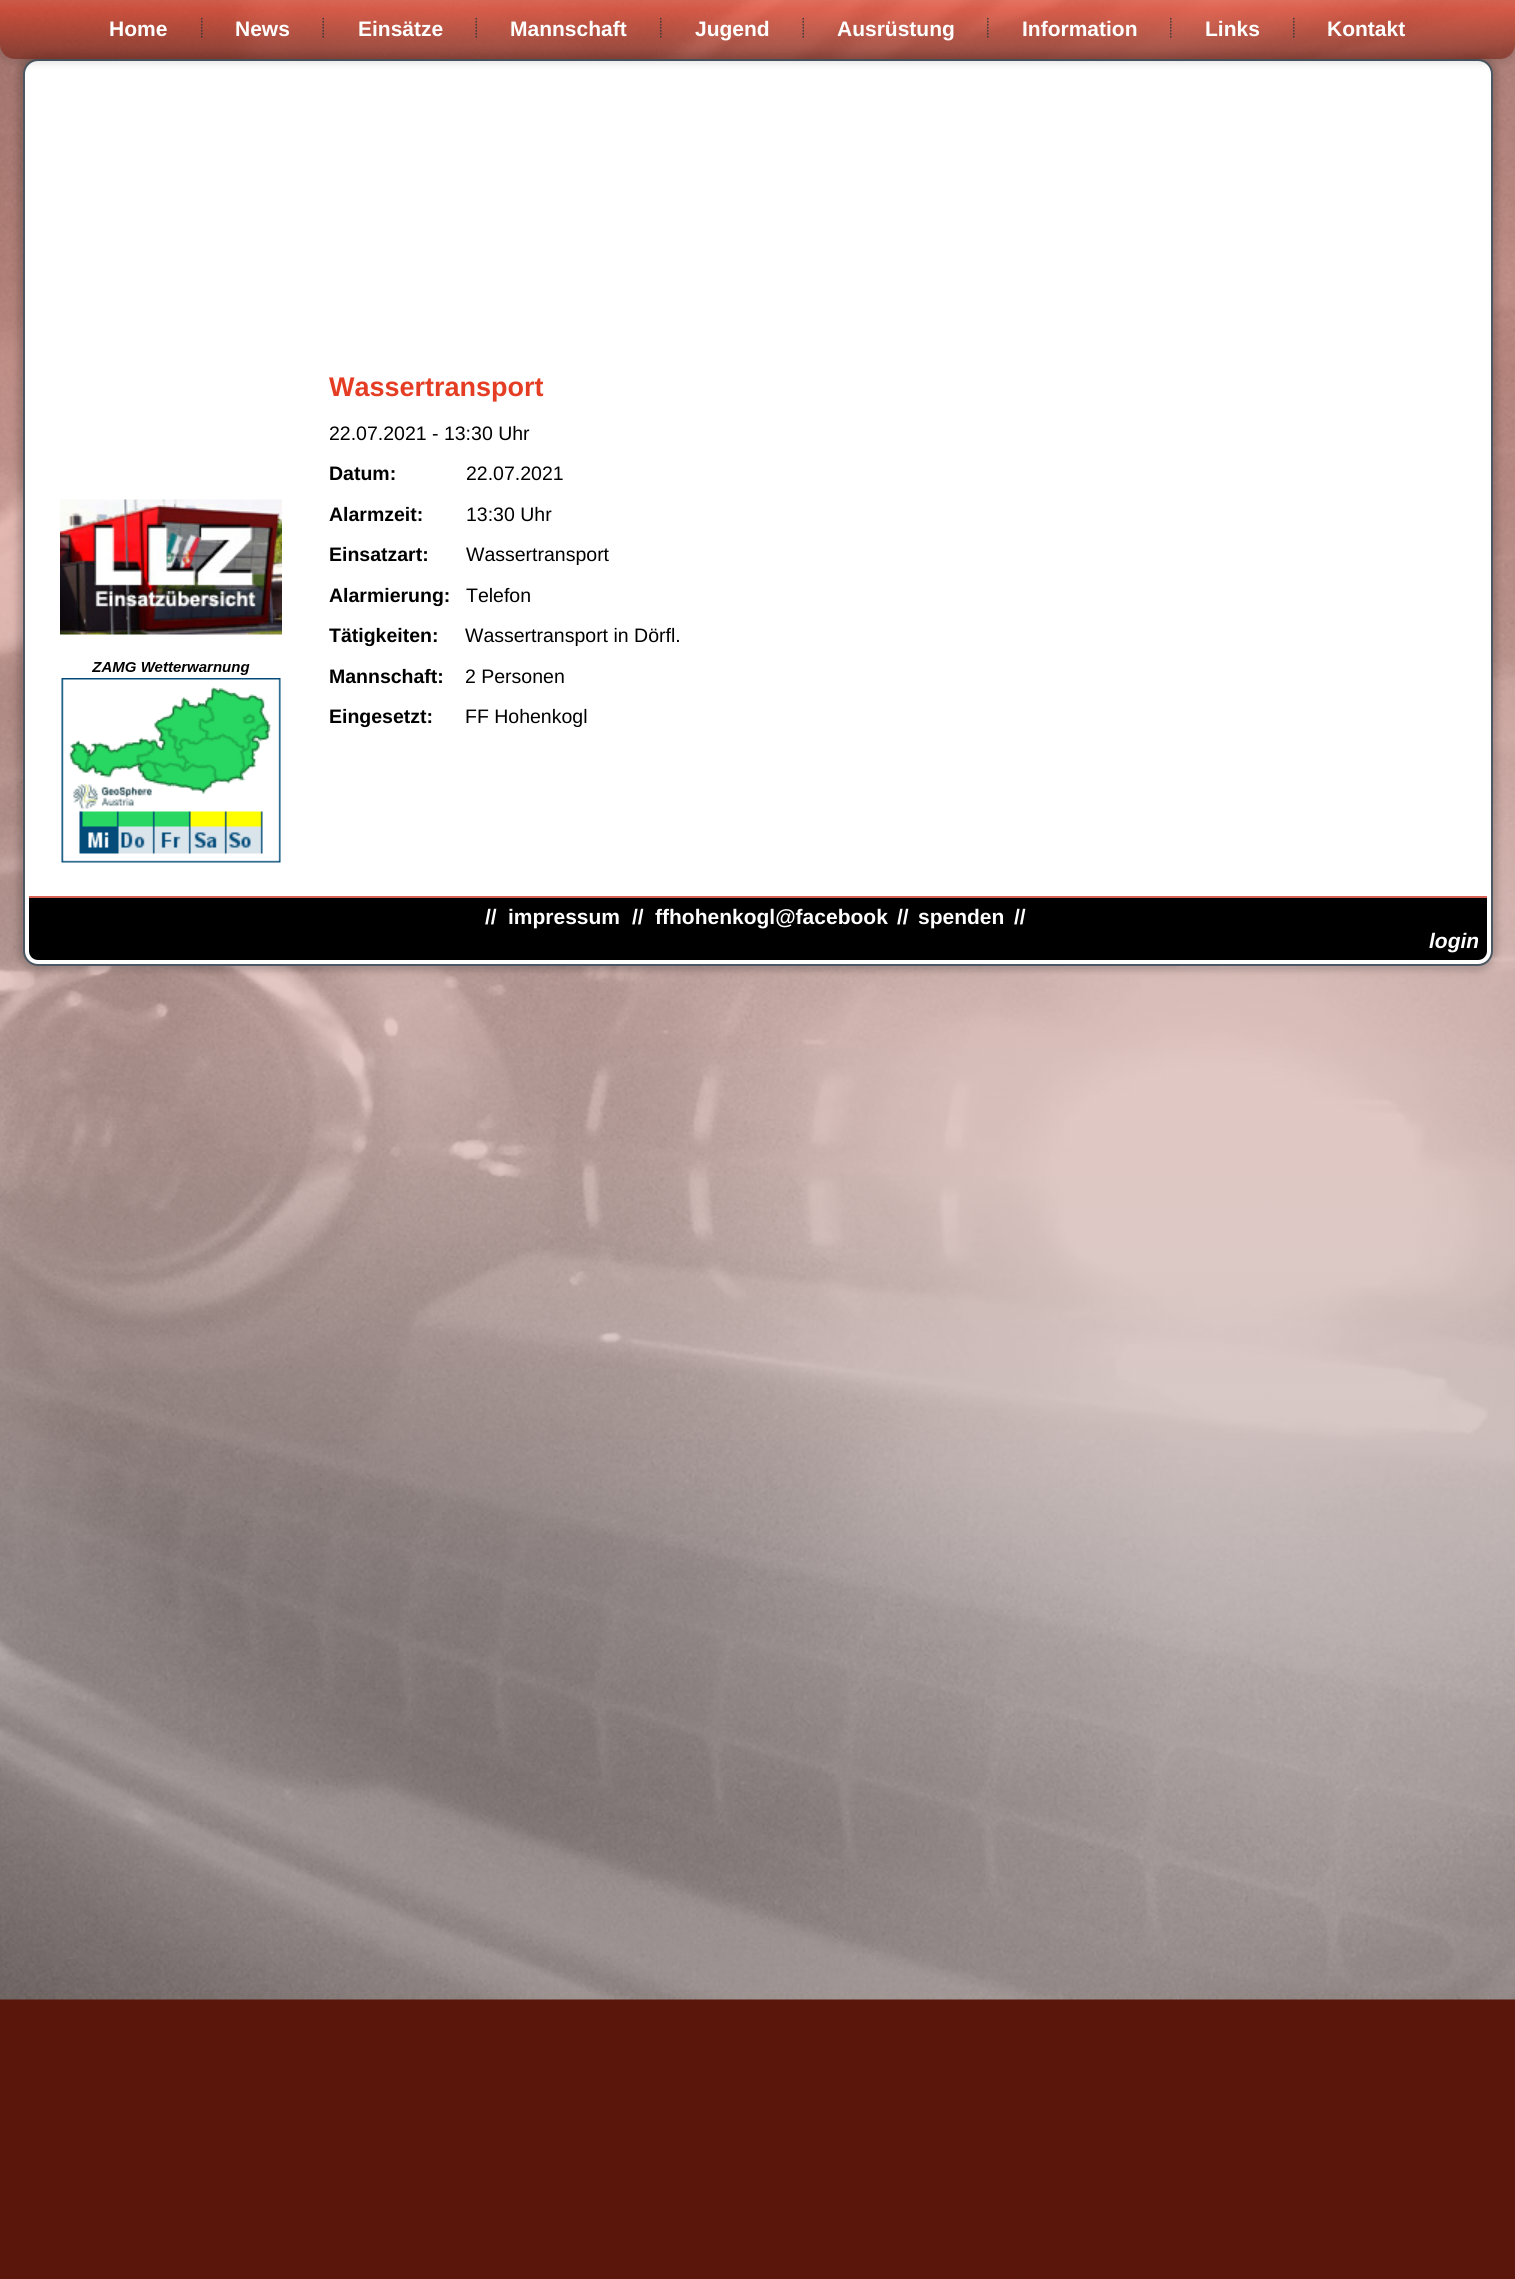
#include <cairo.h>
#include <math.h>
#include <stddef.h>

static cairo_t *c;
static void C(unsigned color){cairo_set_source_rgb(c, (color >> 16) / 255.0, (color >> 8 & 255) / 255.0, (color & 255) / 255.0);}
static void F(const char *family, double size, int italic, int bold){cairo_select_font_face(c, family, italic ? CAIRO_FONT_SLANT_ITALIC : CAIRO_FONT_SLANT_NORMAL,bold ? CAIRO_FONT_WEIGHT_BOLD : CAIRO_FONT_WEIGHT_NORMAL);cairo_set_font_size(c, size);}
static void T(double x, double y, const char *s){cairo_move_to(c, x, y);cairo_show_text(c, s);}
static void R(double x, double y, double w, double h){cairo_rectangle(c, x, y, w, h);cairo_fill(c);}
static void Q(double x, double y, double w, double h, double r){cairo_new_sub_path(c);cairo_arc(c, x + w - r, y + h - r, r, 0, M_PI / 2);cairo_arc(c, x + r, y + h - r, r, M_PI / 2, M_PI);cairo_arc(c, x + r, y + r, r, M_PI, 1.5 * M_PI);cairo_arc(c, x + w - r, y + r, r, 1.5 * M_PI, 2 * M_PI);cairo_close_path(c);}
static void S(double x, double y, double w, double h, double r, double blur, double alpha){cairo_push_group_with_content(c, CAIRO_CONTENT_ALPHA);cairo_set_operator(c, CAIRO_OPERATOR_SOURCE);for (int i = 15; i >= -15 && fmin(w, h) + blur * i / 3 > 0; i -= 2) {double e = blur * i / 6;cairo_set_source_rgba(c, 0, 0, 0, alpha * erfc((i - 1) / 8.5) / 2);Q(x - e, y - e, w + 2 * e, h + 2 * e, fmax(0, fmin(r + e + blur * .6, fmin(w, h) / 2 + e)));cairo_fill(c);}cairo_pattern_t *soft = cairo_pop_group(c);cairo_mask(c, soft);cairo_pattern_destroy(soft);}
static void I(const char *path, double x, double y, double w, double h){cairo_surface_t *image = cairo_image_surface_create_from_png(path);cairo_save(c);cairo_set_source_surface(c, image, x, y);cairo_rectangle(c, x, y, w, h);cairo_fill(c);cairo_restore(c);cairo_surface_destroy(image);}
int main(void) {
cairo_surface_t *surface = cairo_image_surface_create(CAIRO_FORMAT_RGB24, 1515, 2279);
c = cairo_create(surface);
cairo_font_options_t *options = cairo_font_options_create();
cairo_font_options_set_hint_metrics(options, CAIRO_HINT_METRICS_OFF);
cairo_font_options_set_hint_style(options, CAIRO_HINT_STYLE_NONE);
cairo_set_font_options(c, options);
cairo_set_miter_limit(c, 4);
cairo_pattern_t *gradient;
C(0xffffff);
cairo_paint(c);
I("1.png",0,0,1515,2279);
C(0x000000);
S(18,54,1479,917,20,4,.2);
C(0xffffff);
Q(24,60,1468,905,14);
cairo_fill_preserve(c);
C(0x4b5762);
cairo_stroke(c);
cairo_save(c);
cairo_set_fill_rule(c,CAIRO_FILL_RULE_EVEN_ODD);
cairo_new_path(c);
cairo_move_to(c,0,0);
cairo_line_to(c,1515,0);
cairo_line_to(c,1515,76);
cairo_line_to(c,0,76);
cairo_close_path(c);
cairo_move_to(c,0,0);
cairo_line_to(c,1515,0);
cairo_line_to(c,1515,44);
cairo_curve_to(c,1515,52.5,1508.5,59,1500,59);
cairo_line_to(c,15,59);
cairo_curve_to(c,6.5,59,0,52.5,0,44);
cairo_close_path(c);
cairo_clip(c);
C(0x000000);
S(-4,-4,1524,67,20,4,.12);
cairo_restore(c);
gradient = cairo_pattern_create_linear(758,0,758,59);
cairo_pattern_add_color_stop_rgba(gradient,0,0.906,0.29,0.196,.6);
cairo_pattern_add_color_stop_rgba(gradient,.16,0.894,0.212,0.106,.6);
cairo_pattern_add_color_stop_rgba(gradient,1,0.431,0.102,0.051,.6);
cairo_set_source(c,gradient);
cairo_pattern_destroy(gradient);
cairo_new_path(c);
cairo_move_to(c,0,0);
cairo_line_to(c,1515,0);
cairo_line_to(c,1515,44);
cairo_curve_to(c,1515,52.5,1508.5,59,1500,59);
cairo_line_to(c,15,59);
cairo_curve_to(c,6.5,59,0,52.5,0,44);
cairo_close_path(c);
cairo_fill(c);
F("Liberation Sans",21,0,1);
C(0xffffff);
T(109,36,"Home");
I("2.png",201,17,2,21);
T(235,36,"News");
I("3.png",322,17,2,21);
T(358,36,"Einsätze");
I("4.png",475,17,2,21);
T(510,36,"Mannschaft");
I("5.png",660,17,2,21);
T(695,36,"Jugend");
I("6.png",802,17,2,21);
T(837,36,"Ausrüstung");
I("7.png",987,17,2,21);
T(1022,36,"Information");
I("8.png",1170,17,2,21);
T(1205,36,"Links");
I("9.png",1293,17,2,21);
T(1327,36,"Kontakt");
I("10.png",60,499,222,364);
F("Liberation Sans",27,0,1);
C(0xe53d23);
T(329,396,"Wassertransport");
F("Liberation Sans",19.5,0,0);
C(0x000000);
T(329,440,"22.07.2021 - 13:30 Uhr");
F("Liberation Sans",19.5,0,1);
T(329,480,"Datum:");
F("Liberation Sans",19.5,0,0);
T(466,480,"22.07.2021");
F("Liberation Sans",19.5,0,1);
T(329,521,"Alarmzeit:");
F("Liberation Sans",19.5,0,0);
T(466,521,"13:30 Uhr");
F("Liberation Sans",19.5,0,1);
T(329,561,"Einsatzart:");
F("Liberation Sans",19.5,0,0);
T(466,561,"Wassertransport");
F("Liberation Sans",19.5,0,1);
T(329,602,"Alarmierung:");
F("Liberation Sans",19.5,0,0);
T(466,602,"Telefon");
F("Liberation Sans",19.5,0,1);
T(329,642,"Tätigkeiten:");
F("Liberation Sans",19.5,0,0);
T(465,642,"Wassertransport in Dörfl.");
F("Liberation Sans",19.5,0,1);
T(329,683,"Mannschaft:");
F("Liberation Sans",19.5,0,0);
T(465,683,"2 Personen");
F("Liberation Sans",19.5,0,1);
T(329,723,"Eingesetzt:");
F("Liberation Sans",19.5,0,0);
T(465,723,"FF Hohenkogl");
cairo_new_path(c);
cairo_move_to(c,29,896);
cairo_line_to(c,1487,896);
cairo_line_to(c,1487,951);
cairo_curve_to(c,1487,956,1483,960,1478,960);
cairo_line_to(c,38,960);
cairo_curve_to(c,33,960,29,956,29,951);
cairo_close_path(c);
cairo_fill(c);
C(0xd76154);
R(29,896,1458,2);
F("Liberation Sans",21,0,1);
C(0xffffff);
T(485,924,"//");
T(508,924,"impressum");
T(632,924,"//");
T(655,924,"ffhohenkogl@facebook");
T(897,924,"//");
T(918,924,"spenden");
T(1014,924,"//");
F("Liberation Sans",21,1,1);
T(1429,948,"login");
cairo_surface_write_to_png(surface, "o.png");
cairo_font_options_destroy(options);
cairo_destroy(c);
cairo_surface_destroy(surface);
return 0;
}
